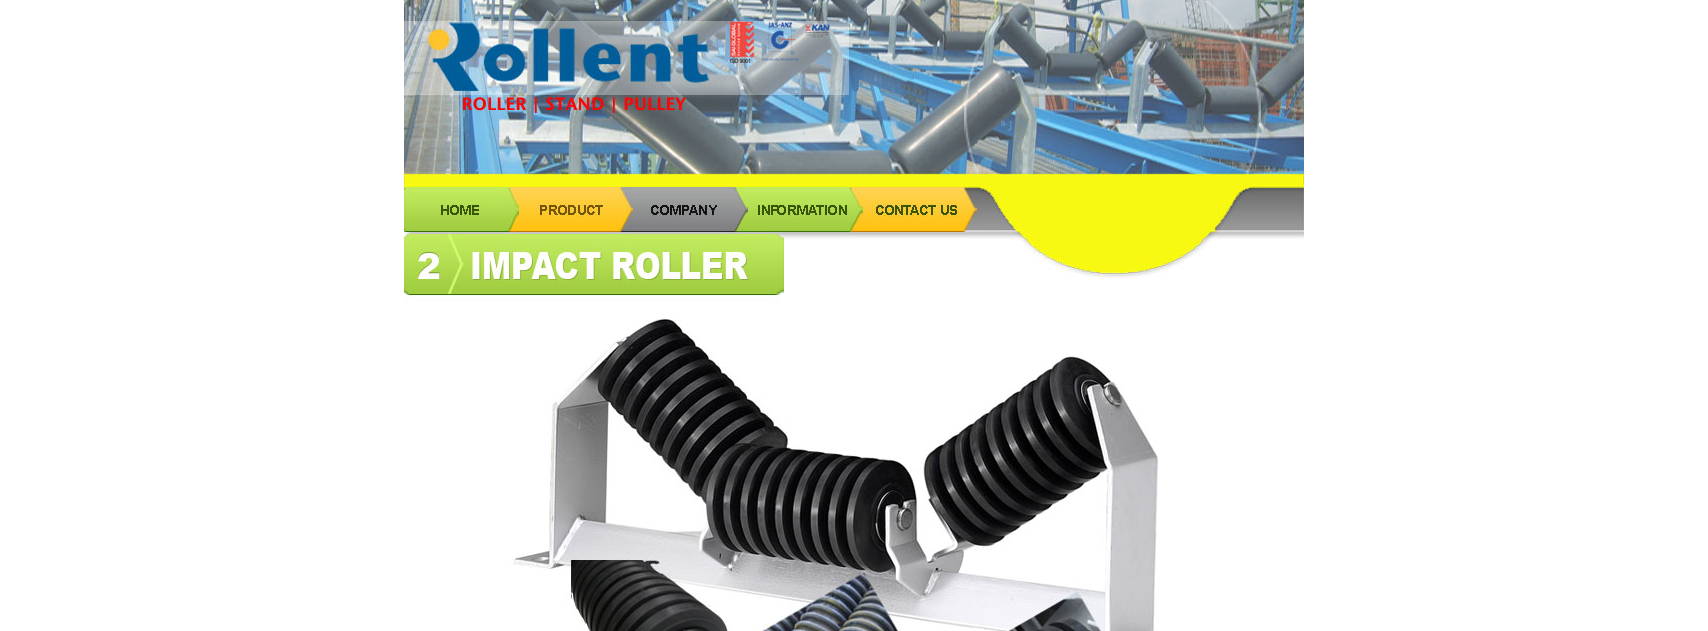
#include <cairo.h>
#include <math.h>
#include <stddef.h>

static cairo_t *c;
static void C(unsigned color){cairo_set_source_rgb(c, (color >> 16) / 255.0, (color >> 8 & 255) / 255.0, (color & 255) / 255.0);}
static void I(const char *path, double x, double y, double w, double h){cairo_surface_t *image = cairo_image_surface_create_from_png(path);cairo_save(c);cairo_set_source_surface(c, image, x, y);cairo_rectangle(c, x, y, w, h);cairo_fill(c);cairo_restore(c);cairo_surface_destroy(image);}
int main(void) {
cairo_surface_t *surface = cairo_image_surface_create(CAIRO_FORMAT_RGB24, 1708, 631);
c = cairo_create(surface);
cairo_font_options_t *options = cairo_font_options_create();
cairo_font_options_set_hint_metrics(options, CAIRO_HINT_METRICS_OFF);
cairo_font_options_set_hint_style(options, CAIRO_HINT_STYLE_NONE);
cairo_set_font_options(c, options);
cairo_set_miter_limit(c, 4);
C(0xffffff);
cairo_paint(c);
I("1.png",404,0,573,95);
I("2.png",977,0,327,231);
I("3.png",404,95,573,92);
I("4.png",404,187,115,44);
I("5.png",519,187,114,44);
I("6.png",633,187,115,44);
I("7.png",748,187,115,44);
I("8.png",863,187,114,44);
I("9.png",404,231,380,63);
I("10.png",784,231,520,48);
I("11.png",404,294,755,337);
cairo_surface_write_to_png(surface, "o.png");
cairo_font_options_destroy(options);
cairo_destroy(c);
cairo_surface_destroy(surface);
return 0;
}
